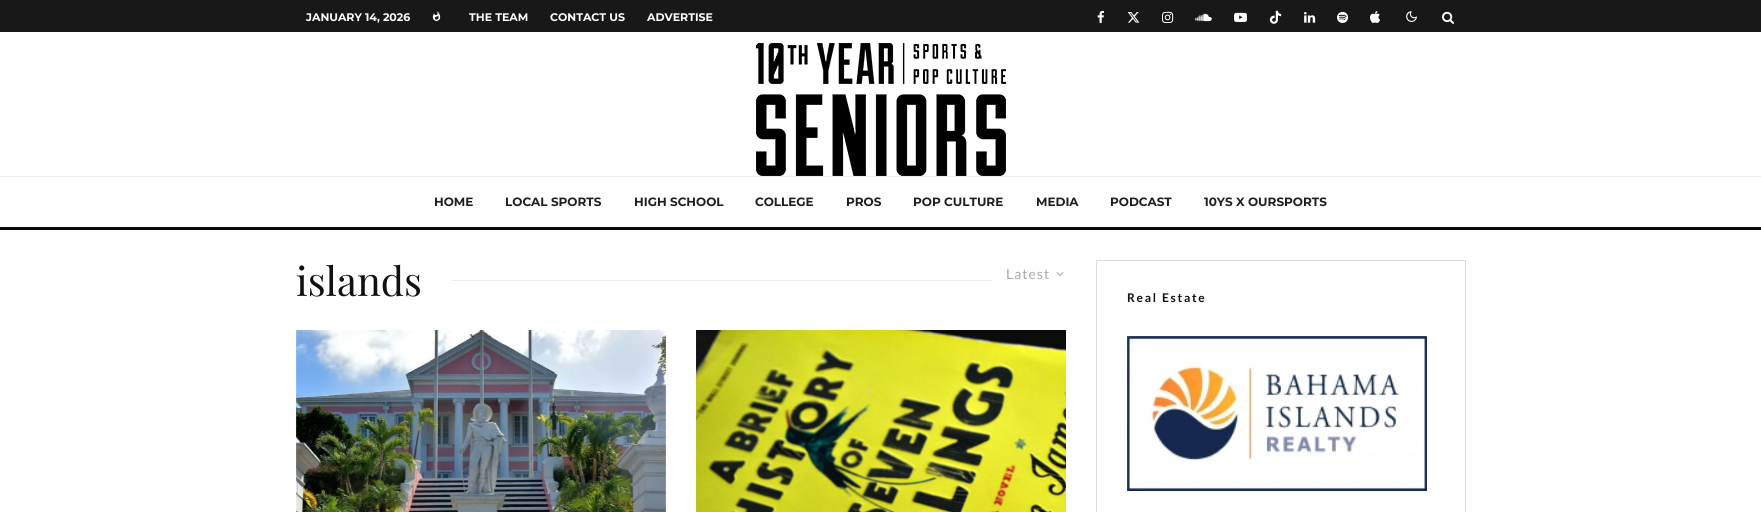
#include <cairo.h>
#include <math.h>
#include <stddef.h>

static cairo_t *c;
static void C(unsigned color){cairo_set_source_rgb(c, (color >> 16) / 255.0, (color >> 8 & 255) / 255.0, (color & 255) / 255.0);}
static void F(const char *family, double size, int italic, int bold){cairo_select_font_face(c, family, italic ? CAIRO_FONT_SLANT_ITALIC : CAIRO_FONT_SLANT_NORMAL,bold ? CAIRO_FONT_WEIGHT_BOLD : CAIRO_FONT_WEIGHT_NORMAL);cairo_set_font_size(c, size);}
static void T(double x, double y, const char *s){cairo_move_to(c, x, y);cairo_show_text(c, s);}
static void L(double x, double y, const char *s, double letter, double word){cairo_move_to(c, x, y);while (*s) {char ch[5] = {0};int n = 0;do ch[n++] = *s++; while ((*s & 0xC0) == 0x80);cairo_show_text(c, ch);cairo_rel_move_to(c, letter + word * (*ch == ' '), 0);}}
static void R(double x, double y, double w, double h){cairo_rectangle(c, x, y, w, h);cairo_fill(c);}
static void I(const char *path, double x, double y, double w, double h){cairo_surface_t *image = cairo_image_surface_create_from_png(path);cairo_save(c);cairo_set_source_surface(c, image, x, y);cairo_rectangle(c, x, y, w, h);cairo_fill(c);cairo_restore(c);cairo_surface_destroy(image);}
int main(void) {
cairo_surface_t *surface = cairo_image_surface_create(CAIRO_FORMAT_RGB24, 1761, 512);
c = cairo_create(surface);
cairo_font_options_t *options = cairo_font_options_create();
cairo_font_options_set_hint_metrics(options, CAIRO_HINT_METRICS_OFF);
cairo_font_options_set_hint_style(options, CAIRO_HINT_STYLE_NONE);
cairo_set_font_options(c, options);
cairo_set_miter_limit(c, 4);
C(0xffffff);
cairo_paint(c);
C(0x181818);
R(0,0,1761,32);
F("Montserrat",11,0,1);
C(0xffffff);
T(306,21,"JANUARY 14, 2026");
I("1.png",432,11,9,10);
T(469,21,"THE TEAM");
T(550,21,"CONTACT US");
T(647,21,"ADVERTISE");
I("2.png",1097,10,7,13);
I("3.png",1127,12,13,11);
I("4.png",1162,11,12,12);
I("5.png",1195,13,17,9);
I("6.png",1234,12,13,10);
I("7.png",1269,10,13,14);
I("8.png",1304,12,12,11);
I("9.png",1337,11,12,12);
I("10.png",1370,11,10,12);
I("11.png",1406,11,11,11);
I("12.png",1442,11,12,13);
I("13.png",756,43,250,133);
C(0xeeeeee);
R(0,176,1761,1);
C(0x0a0a0a);
R(0,227,1761,3);
F("Montserrat",12,0,1);
C(0x1e1e1e);
T(434,206,"HOME");
T(505,206,"LOCAL SPORTS");
T(634,206,"HIGH SCHOOL");
T(755,206,"COLLEGE");
T(846,206,"PROS");
T(913,206,"POP CULTURE");
T(1036,206,"MEDIA");
T(1110,206,"PODCAST");
T(1204,206,"10YS X OURSPORTS");
F("Playfair Display",40,0,0);
C(0x111111);
T(296,296,"islands");
C(0xeeeeee);
R(451,280,540,1);
F("Lato",14,0,0);
C(0xaaaaaa);
L(1006,279,"Latest",1,0);
I("14.png",1056,272,8,4);
I("15.png",296,330,370,182);
I("16.png",696,330,370,182);
cairo_rectangle(c,1096.5,260.5,369,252);
C(0xdddddd);
cairo_set_line_width(c,1);
cairo_stroke(c);
F("Lato",12,0,1);
C(0x111111);
L(1127,302,"Real Estate",1.75,0);
I("17.png",1127,336,300,155);
cairo_surface_write_to_png(surface, "o.png");
cairo_font_options_destroy(options);
cairo_destroy(c);
cairo_surface_destroy(surface);
return 0;
}
